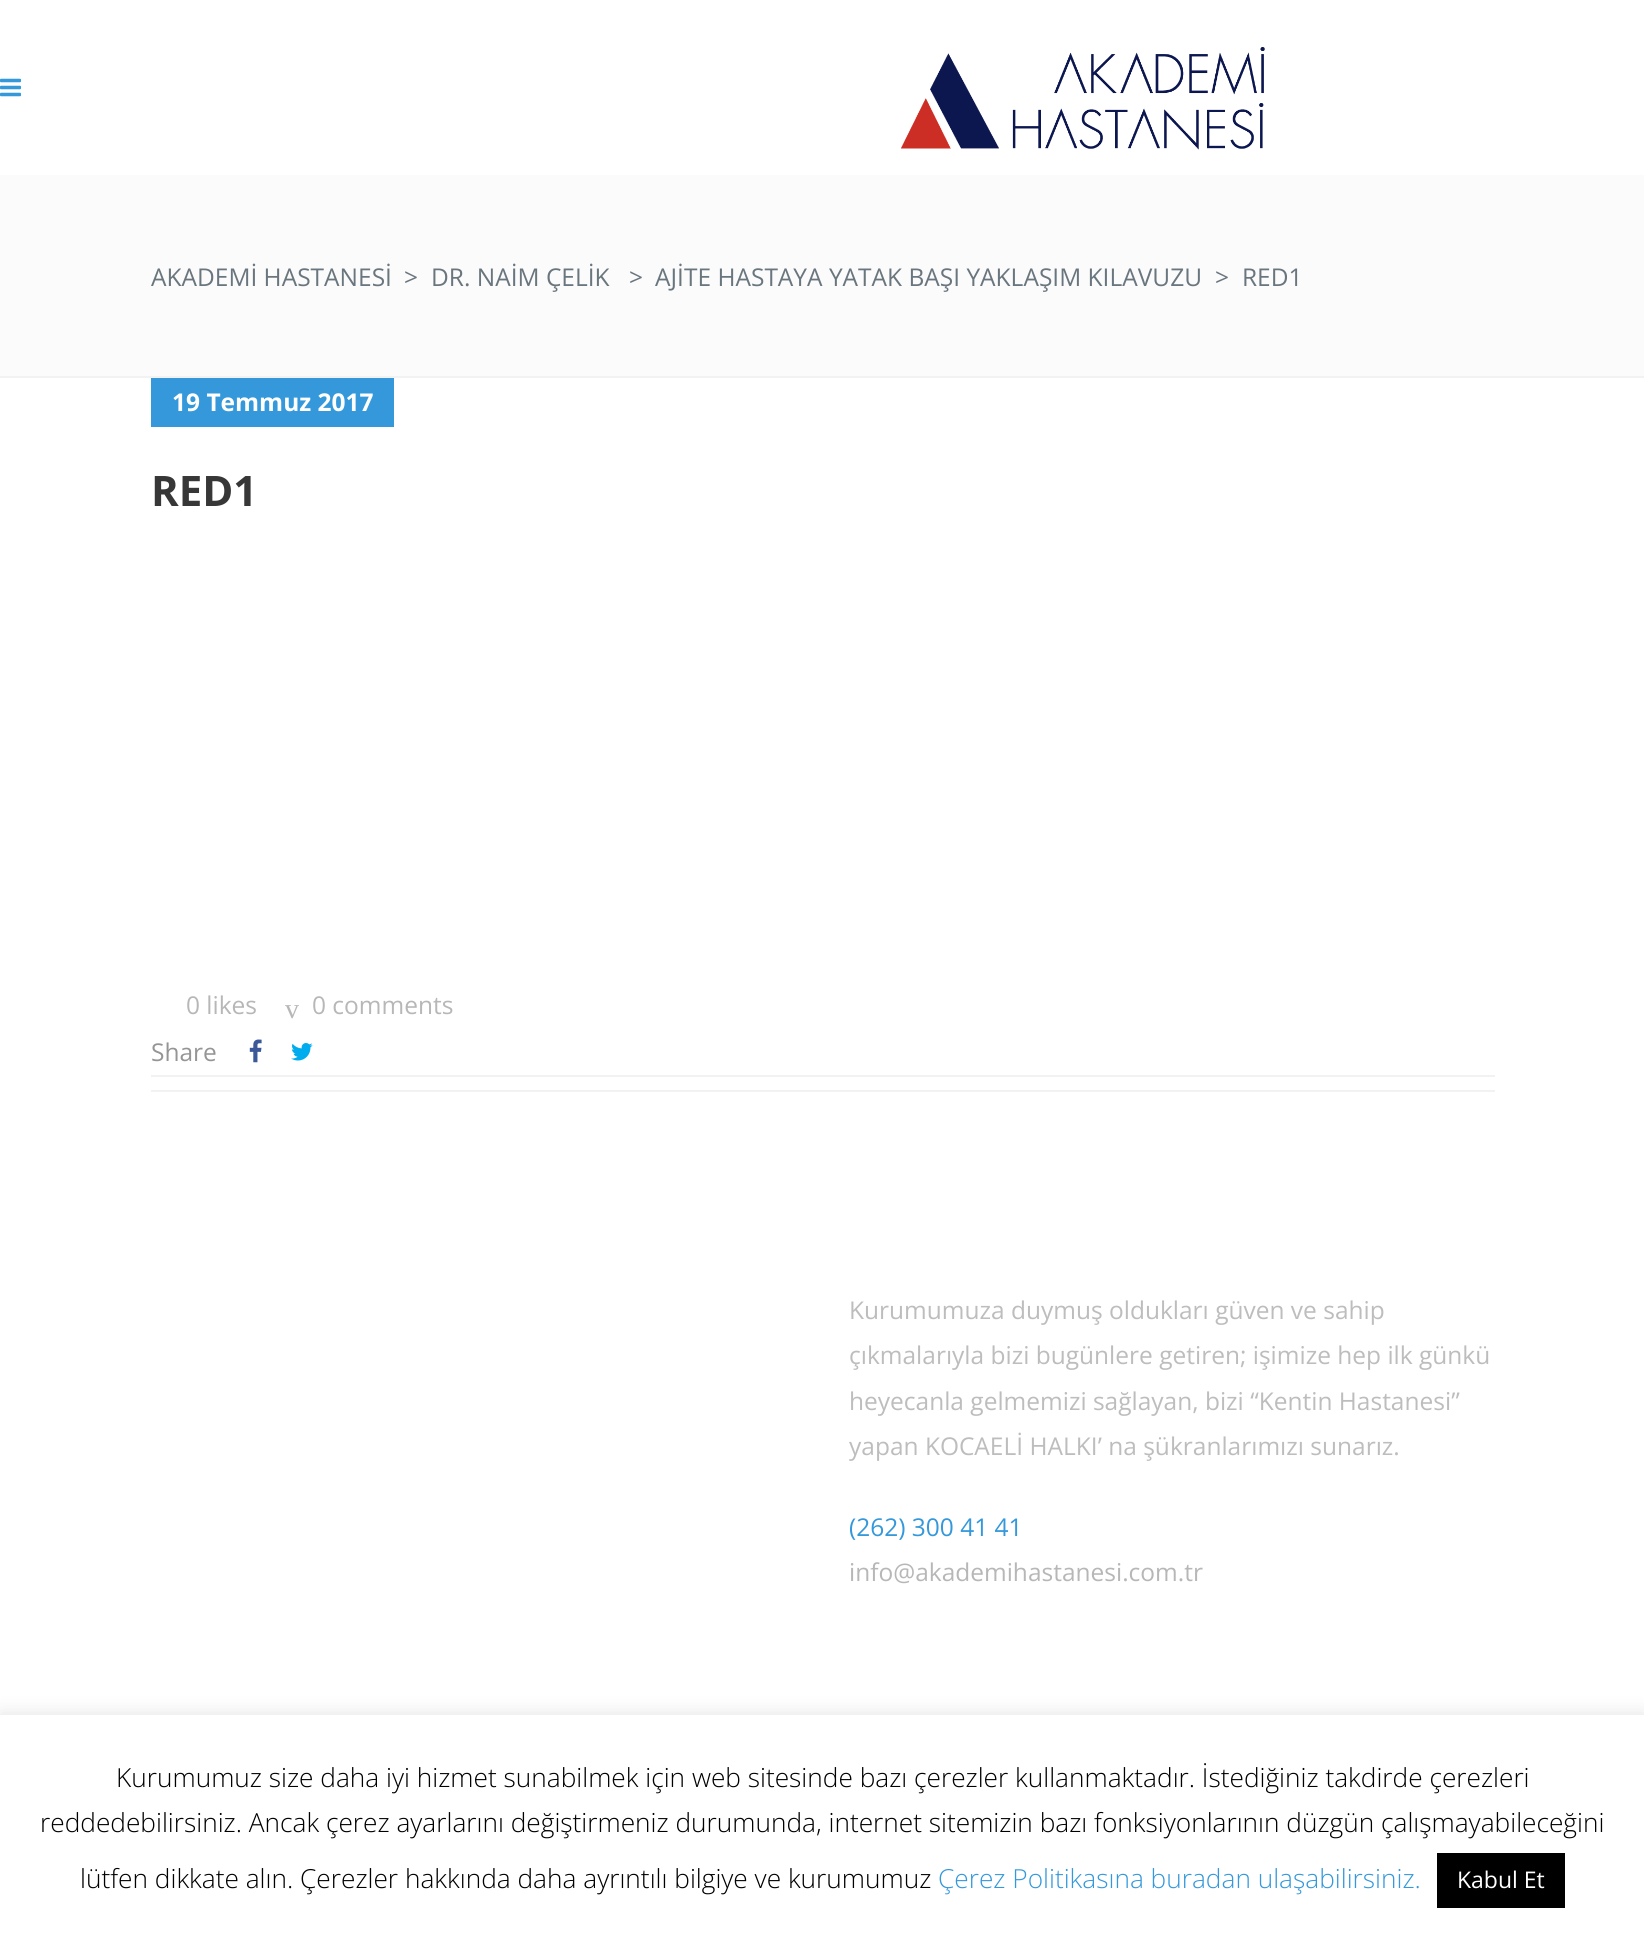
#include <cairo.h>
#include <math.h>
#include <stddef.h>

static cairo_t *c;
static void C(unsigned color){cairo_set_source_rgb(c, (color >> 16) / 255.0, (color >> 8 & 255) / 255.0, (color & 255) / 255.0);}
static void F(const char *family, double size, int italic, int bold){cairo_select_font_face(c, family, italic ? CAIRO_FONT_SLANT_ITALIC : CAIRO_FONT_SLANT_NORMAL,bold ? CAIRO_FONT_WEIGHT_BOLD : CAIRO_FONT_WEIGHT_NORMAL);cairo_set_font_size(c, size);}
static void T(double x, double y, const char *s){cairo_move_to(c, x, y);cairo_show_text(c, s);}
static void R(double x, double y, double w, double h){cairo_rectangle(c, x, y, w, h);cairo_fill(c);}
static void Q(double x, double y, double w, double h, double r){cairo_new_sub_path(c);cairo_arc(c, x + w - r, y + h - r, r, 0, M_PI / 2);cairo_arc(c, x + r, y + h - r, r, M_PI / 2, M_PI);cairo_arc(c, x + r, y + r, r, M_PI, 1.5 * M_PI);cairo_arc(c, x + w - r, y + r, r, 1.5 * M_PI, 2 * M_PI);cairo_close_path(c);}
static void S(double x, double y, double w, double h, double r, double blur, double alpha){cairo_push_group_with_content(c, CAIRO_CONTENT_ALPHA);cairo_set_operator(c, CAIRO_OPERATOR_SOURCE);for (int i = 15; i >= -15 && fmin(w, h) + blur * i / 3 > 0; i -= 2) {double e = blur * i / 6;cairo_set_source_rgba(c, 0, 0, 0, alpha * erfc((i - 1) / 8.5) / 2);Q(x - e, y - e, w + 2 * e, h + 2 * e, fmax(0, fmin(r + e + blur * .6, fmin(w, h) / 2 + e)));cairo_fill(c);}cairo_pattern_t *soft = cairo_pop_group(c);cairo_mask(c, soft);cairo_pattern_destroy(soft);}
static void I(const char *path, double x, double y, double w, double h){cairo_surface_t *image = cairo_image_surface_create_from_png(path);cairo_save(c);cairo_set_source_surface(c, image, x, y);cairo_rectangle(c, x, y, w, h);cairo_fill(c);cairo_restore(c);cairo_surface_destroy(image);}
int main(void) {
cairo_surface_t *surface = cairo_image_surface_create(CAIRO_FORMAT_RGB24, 1644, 1946);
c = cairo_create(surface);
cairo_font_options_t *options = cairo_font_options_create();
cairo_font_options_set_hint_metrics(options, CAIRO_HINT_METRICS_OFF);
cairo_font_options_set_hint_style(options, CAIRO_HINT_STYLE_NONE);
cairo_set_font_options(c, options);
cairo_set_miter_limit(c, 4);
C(0xffffff);
cairo_paint(c);
I("1.png",0,78,21,19);
I("2.png",901,47,364,103);
C(0xfbfbfc);
R(0,175,1644,201);
C(0xf2f2f2);
R(0,376,1644,2);
F("Open Sans",24.5,0,0);
C(0x6a767e);
T(151,286,"AKADEMİ HASTANESİ");
T(404,286,">");
T(431,286,"DR. NAİM ÇELİK");
T(629,286,">");
T(655,286,"AJİTE HASTAYA YATAK BAŞI YAKLAŞIM KILAVUZU");
T(1215,286,">");
T(1242,286,"RED1");
C(0x3498db);
R(151,378,243,49);
F("Open Sans",24.5,0,1);
C(0xffffff);
T(172,411,"19 Temmuz 2017");
F("Open Sans",42,0,1);
C(0x373737);
T(151,506,"RED1");
F("Open Sans",24.5,0,0);
C(0xb7b7b7);
T(186,1014,"0 likes");
F("Liberation Serif",28,0,0);
T(285,1018,"v");
F("Open Sans",24.5,0,0);
T(312,1014,"0 comments");
C(0x959595);
T(151,1061,"Share");
I("3.png",249,1039,13,24);
I("4.png",291,1043,22,18);
C(0xf2f2f2);
R(151,1075,1344,2);
R(151,1090,1344,2);
C(0xbdbdbd);
T(849,1319,"Kurumumuza duymuş oldukları güven ve sahip");
T(849,1364,"çıkmalarıyla bizi bugünlere getiren; işimize hep ilk günkü");
T(849,1410,"heyecanla gelmemizi sağlayan, bizi “Kentin Hastanesi”");
T(849,1455,"yapan KOCAELİ HALKI’ na şükranlarımızı sunarız.");
C(0x3498db);
T(849,1536,"(262) 300 41 41");
C(0xb7b7b7);
T(849,1581,"info@akademihastanesi.com.tr");
C(0xacabab);
S(0,1713,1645,231,0,9,.3);
C(0xffffff);
R(0,1715,1644,231);
F("Open Sans Light",26.25,0,0);
C(0x000000);
T(116,1787,"Kurumumuz size daha iyi hizmet sunabilmek için web sitesinde bazı çerezler kullanmaktadır. İstediğiniz takdirde çerezleri");
T(40,1832,"reddedebilirsiniz. Ancak çerez ayarlarını değiştirmeniz durumunda, internet sitemizin bazı fonksiyonlarının düzgün çalışmayabileceğini");
T(80,1888,"lütfen dikkate alın. Çerezler hakkında daha ayrıntılı bilgiye ve kurumumuz");
C(0x3498db);
T(938,1888,"Çerez Politikasına buradan ulaşabilirsiniz.");
C(0x000000);
R(1437,1853,128,55);
F("Open Sans",23,0,0);
C(0xffffff);
T(1457,1888,"Kabul Et");
cairo_surface_write_to_png(surface, "o.png");
cairo_font_options_destroy(options);
cairo_destroy(c);
cairo_surface_destroy(surface);
return 0;
}
